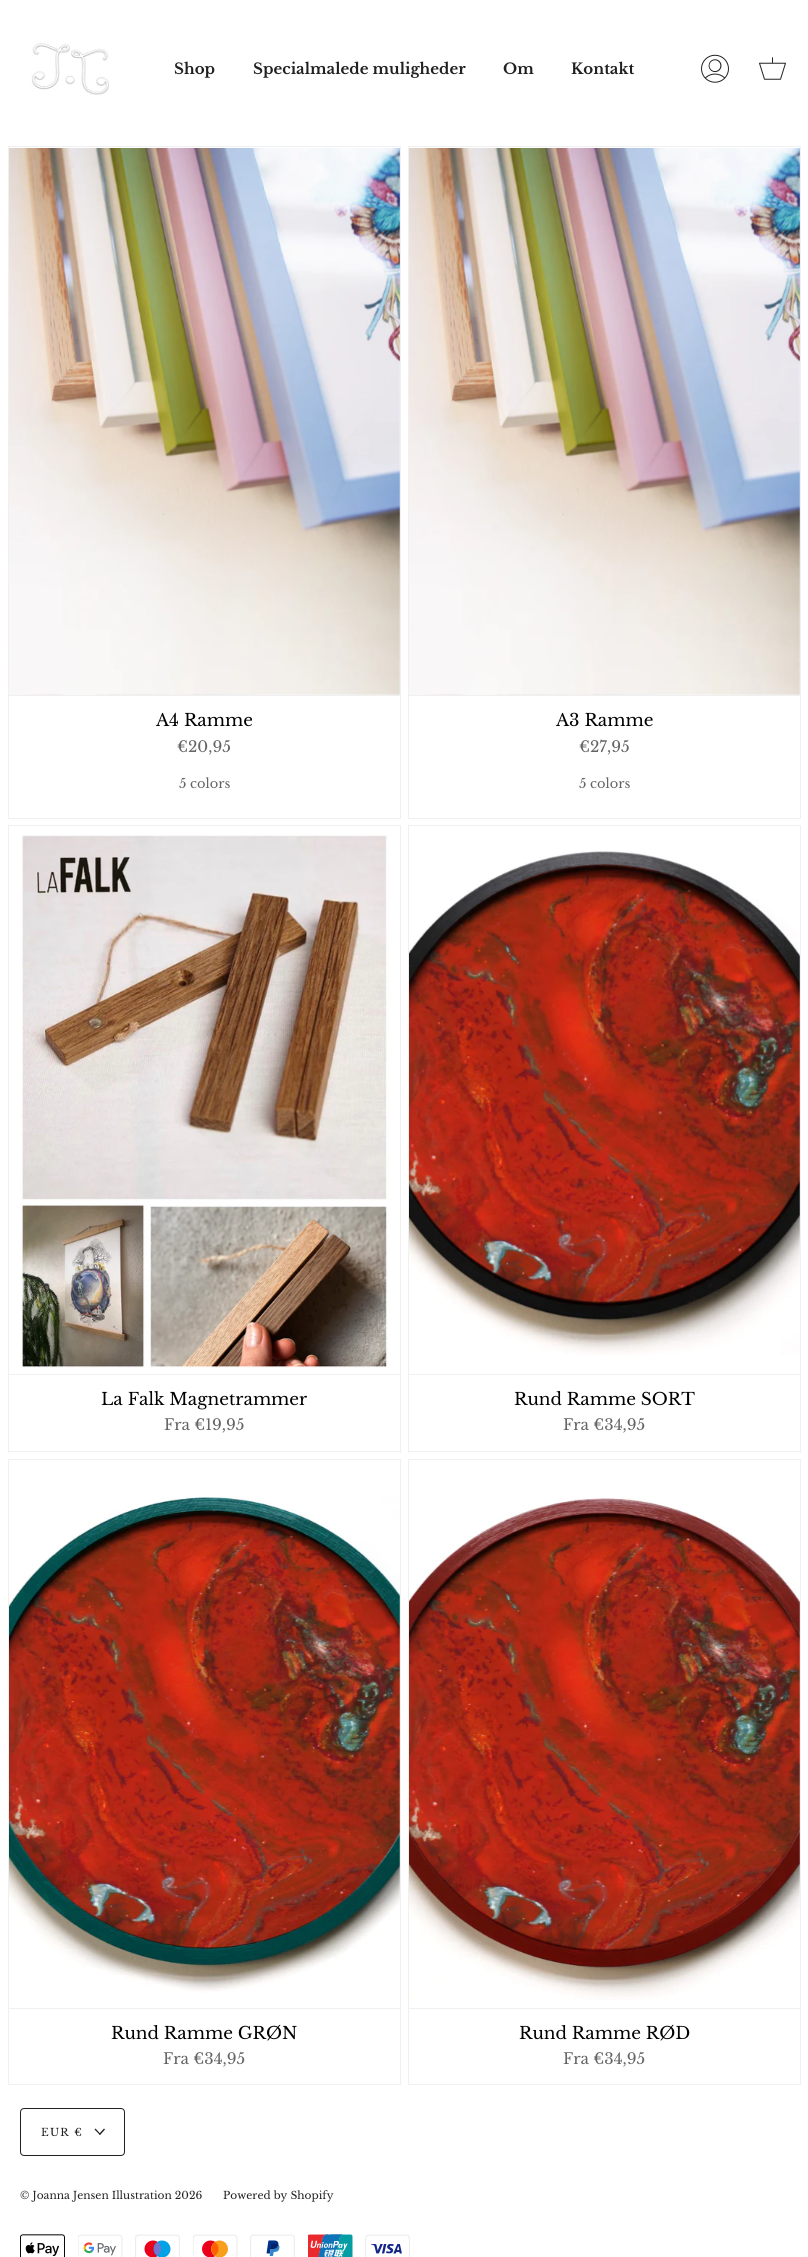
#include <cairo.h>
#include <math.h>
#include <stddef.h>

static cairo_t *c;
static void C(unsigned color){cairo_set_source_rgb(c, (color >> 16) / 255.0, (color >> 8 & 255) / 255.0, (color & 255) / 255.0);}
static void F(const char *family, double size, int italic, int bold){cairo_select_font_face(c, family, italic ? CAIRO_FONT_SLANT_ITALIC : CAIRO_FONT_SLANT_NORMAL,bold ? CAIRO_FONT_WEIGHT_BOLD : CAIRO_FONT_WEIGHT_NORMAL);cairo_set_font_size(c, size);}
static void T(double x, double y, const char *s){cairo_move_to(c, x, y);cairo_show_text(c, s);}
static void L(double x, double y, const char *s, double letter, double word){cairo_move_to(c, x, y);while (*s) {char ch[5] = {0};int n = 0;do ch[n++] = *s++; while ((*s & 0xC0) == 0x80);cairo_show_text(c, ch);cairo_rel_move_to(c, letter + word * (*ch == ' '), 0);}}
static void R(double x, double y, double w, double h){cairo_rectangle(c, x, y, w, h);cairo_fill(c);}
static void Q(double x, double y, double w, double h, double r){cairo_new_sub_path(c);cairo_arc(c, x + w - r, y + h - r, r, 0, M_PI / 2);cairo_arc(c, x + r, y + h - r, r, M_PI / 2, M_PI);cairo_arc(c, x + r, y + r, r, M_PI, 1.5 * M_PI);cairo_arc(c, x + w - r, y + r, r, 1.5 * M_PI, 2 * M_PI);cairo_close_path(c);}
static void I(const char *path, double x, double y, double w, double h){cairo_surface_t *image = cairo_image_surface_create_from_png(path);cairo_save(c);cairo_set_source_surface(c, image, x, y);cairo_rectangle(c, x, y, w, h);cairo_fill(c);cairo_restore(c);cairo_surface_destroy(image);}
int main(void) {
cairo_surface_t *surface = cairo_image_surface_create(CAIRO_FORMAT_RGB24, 808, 2257);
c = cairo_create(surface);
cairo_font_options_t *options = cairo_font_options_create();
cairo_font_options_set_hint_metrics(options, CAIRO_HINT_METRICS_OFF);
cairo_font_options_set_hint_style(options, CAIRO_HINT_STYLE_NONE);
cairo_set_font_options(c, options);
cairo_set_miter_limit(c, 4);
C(0xffffff);
cairo_paint(c);
I("1.png",31,43,78,52);
F("Libre Baskerville",15,0,1);
C(0x212121);
T(174,74,"Shop");
T(253,74,"Specialmalede muligheder");
T(503,74,"Om");
T(571,74,"Kontakt");
I("2.png",701,54,28,29);
I("3.png",759,57,27,23);
C(0xf0f0f0);
R(9,146,392,1);
R(400,146,1,673);
R(9,818,392,1);
R(8,146,1,673);
R(9,695,391,1);
I("4.png",9,148,391,547);
F("Libre Baskerville",17,0,0);
C(0x000000);
T(156,726,"A4 Ramme");
F("Libre Baskerville",15.25,0,0);
C(0x646464);
T(177,752,"€20,95");
F("Libre Baskerville",13,0,0);
T(179,788,"5 colors");
C(0xf0f0f0);
R(409,146,392,1);
R(800,146,1,673);
R(409,818,392,1);
R(408,146,1,673);
R(409,695,391,1);
I("5.png",409,148,391,547);
F("Libre Baskerville",17,0,0);
C(0x000000);
T(556,726,"A3 Ramme");
F("Libre Baskerville",15.25,0,0);
C(0x646464);
T(579,752,"€27,95");
F("Libre Baskerville",13,0,0);
T(579,788,"5 colors");
C(0xf0f0f0);
R(9,825,392,1);
R(400,825,1,628);
R(9,1451,392,1);
R(8,825,1,628);
R(9,1374,391,1);
I("6.png",20,835,369,533);
F("Libre Baskerville",17,0,0);
C(0x000000);
T(101,1405,"La Falk Magnetrammer");
F("Libre Baskerville",15.25,0,0);
C(0x646464);
T(164,1430,"Fra €19,95");
C(0xf0f0f0);
R(409,825,392,1);
R(800,825,1,628);
R(409,1451,392,1);
R(408,825,1,628);
R(409,1374,391,1);
I("7.png",409,851,391,504);
F("Libre Baskerville",17,0,0);
C(0x000000);
T(514,1405,"Rund Ramme SORT");
F("Libre Baskerville",15.25,0,0);
C(0x646464);
T(563,1430,"Fra €34,95");
C(0xf0f0f0);
R(9,1459,392,1);
R(400,1459,1,626);
R(9,2084,392,1);
R(8,1459,1,626);
R(9,2008,391,1);
I("8.png",9,1496,391,497);
F("Libre Baskerville",17,0,0);
C(0x000000);
T(111,2039,"Rund Ramme GRØN");
F("Libre Baskerville",15.25,0,0);
C(0x646464);
T(163,2064,"Fra €34,95");
C(0xf0f0f0);
R(409,1459,392,1);
R(800,1459,1,626);
R(409,2084,392,1);
R(408,1459,1,626);
R(409,2008,391,1);
I("9.png",409,1497,391,503);
F("Libre Baskerville",17,0,0);
C(0x000000);
T(519,2039,"Rund Ramme RØD");
F("Libre Baskerville",15.25,0,0);
C(0x646464);
T(563,2064,"Fra €34,95");
Q(20.5,2108.5,104,47,3.5);
C(0x212121);
cairo_set_line_width(c,1);
cairo_stroke(c);
F("Libre Baskerville",10.6,0,0);
L(41,2136,"EUR €",1.25,0);
cairo_new_path(c);
cairo_move_to(c,99,2134);
cairo_line_to(c,104,2128.5);
cairo_line_to(c,105,2129.5);
cairo_line_to(c,100,2135);
cairo_close_path(c);
cairo_fill(c);
cairo_new_path(c);
cairo_move_to(c,94.5,2129.5);
cairo_line_to(c,95.5,2128.5);
cairo_line_to(c,100.5,2134);
cairo_line_to(c,100,2135);
cairo_close_path(c);
cairo_fill(c);
T(20,2199,"© Joanna Jensen Illustration 2026");
T(223,2199,"Powered by Shopify");
I("10.png",20,2234,45,23);
I("11.png",78,2234,45,23);
I("12.png",135,2234,45,23);
I("13.png",193,2234,45,23);
I("14.png",250,2234,45,23);
I("15.png",308,2234,45,23);
I("16.png",365,2234,45,23);
cairo_surface_write_to_png(surface, "o.png");
cairo_font_options_destroy(options);
cairo_destroy(c);
cairo_surface_destroy(surface);
return 0;
}
